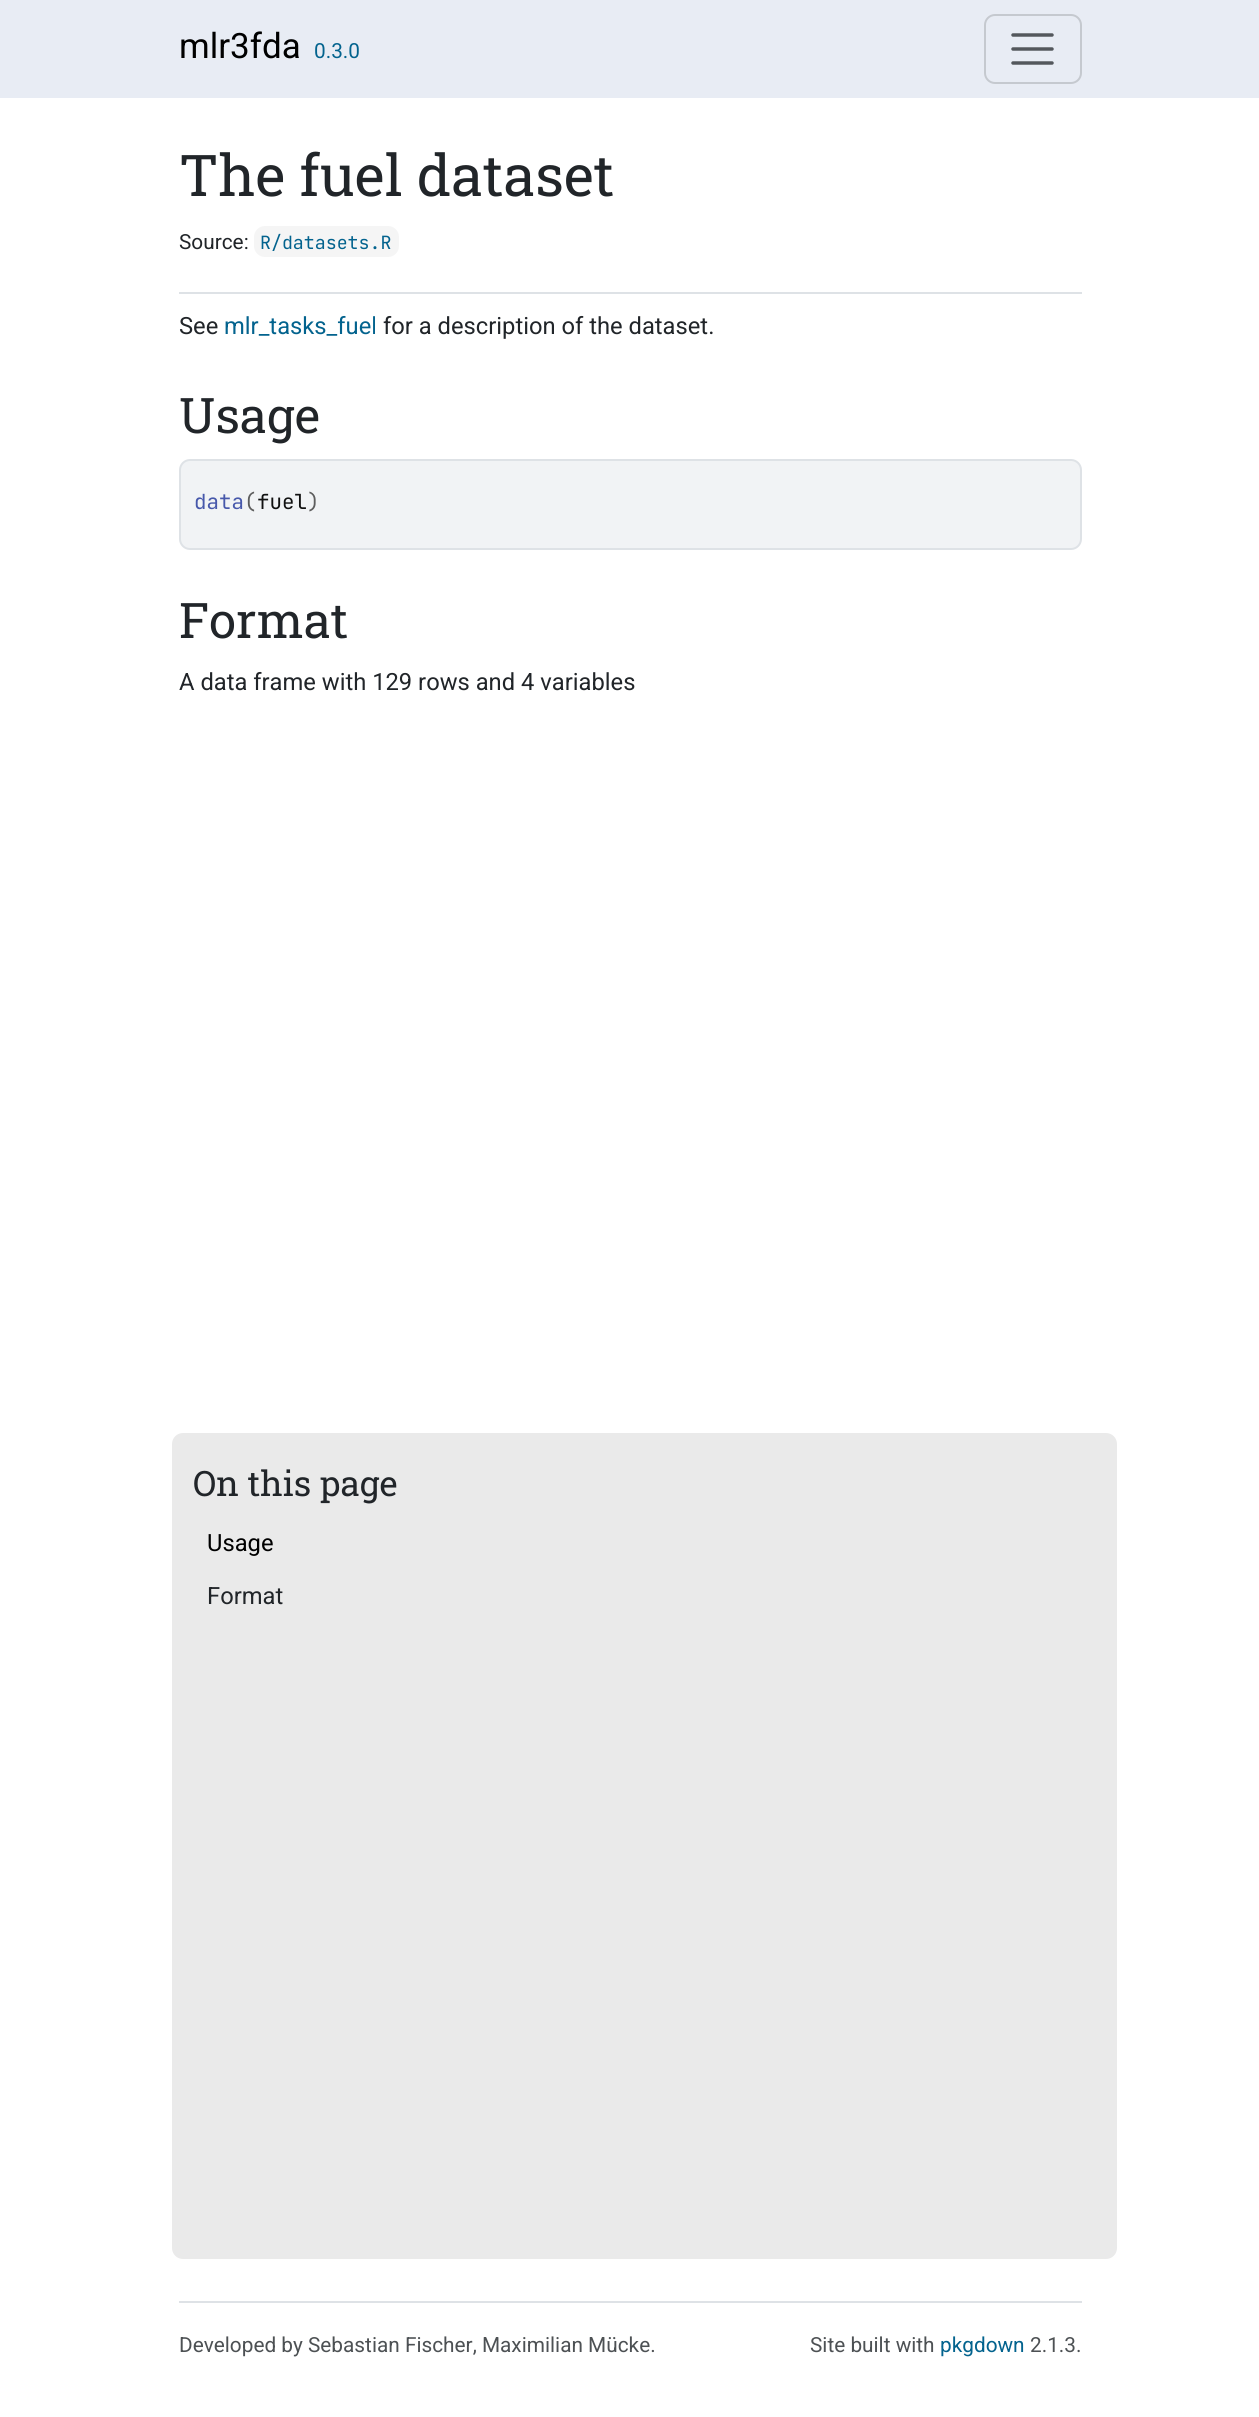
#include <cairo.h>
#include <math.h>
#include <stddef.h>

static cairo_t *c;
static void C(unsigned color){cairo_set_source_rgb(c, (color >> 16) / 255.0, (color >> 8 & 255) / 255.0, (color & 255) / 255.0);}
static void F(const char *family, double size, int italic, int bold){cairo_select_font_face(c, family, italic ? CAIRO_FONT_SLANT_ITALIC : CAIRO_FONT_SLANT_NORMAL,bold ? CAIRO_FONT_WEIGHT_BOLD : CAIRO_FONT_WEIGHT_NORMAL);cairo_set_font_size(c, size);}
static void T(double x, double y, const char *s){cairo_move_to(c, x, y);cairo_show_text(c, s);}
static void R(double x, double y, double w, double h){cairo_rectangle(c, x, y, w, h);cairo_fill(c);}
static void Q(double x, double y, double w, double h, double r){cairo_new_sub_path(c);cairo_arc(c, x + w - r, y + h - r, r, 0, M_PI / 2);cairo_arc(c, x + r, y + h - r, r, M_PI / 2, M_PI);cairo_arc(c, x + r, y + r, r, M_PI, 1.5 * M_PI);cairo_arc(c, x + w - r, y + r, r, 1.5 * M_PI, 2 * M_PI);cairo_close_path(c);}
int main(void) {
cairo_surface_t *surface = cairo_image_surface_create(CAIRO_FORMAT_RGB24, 1259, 2417);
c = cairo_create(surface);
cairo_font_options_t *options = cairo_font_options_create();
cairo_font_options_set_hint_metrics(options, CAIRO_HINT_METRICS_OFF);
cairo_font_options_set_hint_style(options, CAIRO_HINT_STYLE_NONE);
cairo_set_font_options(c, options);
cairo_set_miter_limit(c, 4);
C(0xffffff);
cairo_paint(c);
C(0xe8ecf4);
R(0,0,1259,98);
F("Roboto",35,0,0);
C(0x000000);
T(179,58,"mlr3fda");
F("Roboto",20.8,0,0);
C(0x03638e);
T(314,58,"0.3.0");
Q(985,15,96,68,10);
C(0xc5c9cf);
cairo_stroke(c);
cairo_new_path(c);
cairo_move_to(c,1013,35);
cairo_line_to(c,1052,35);
cairo_move_to(c,1013,49);
cairo_line_to(c,1052,49);
cairo_move_to(c,1013,63);
cairo_line_to(c,1052,63);
C(0x53575c);
cairo_set_line_width(c,3.5);
cairo_set_line_cap(c,CAIRO_LINE_CAP_ROUND);
cairo_stroke(c);
C(0xdee2e6);
R(179,292,903,2);
F("Roboto Slab",57.5,0,0);
C(0x212529);
T(179,196,"The fuel dataset");
F("Roboto",20.8,0,0);
T(179,249,"Source:");
C(0xf5f5f5);
Q(254,226,145,31,11);
cairo_fill(c);
F("JetBrains Mono",18.25,0,0);
C(0x03638e);
T(260,249,"R/datasets.R");
F("Roboto",23.75,0,0);
C(0x212529);
T(179,334,"See");
C(0x03638e);
T(224,334,"mlr_tasks_fuel");
C(0x212529);
T(383,334,"for a description of the dataset.");
F("Roboto Slab",49,0,0);
T(179,433,"Usage");
C(0xf1f3f5);
Q(180,460,901,89,10);
cairo_fill_preserve(c);
C(0xdee2e6);
cairo_set_line_width(c,2);
cairo_set_line_cap(c,CAIRO_LINE_CAP_BUTT);
cairo_stroke(c);
F("JetBrains Mono",20.8,0,0);
C(0x4758ab);
T(194,509,"data");
C(0x5e5e5e);
T(244,509,"(");
C(0x111111);
T(257,509,"fuel");
C(0x5e5e5e);
T(307,509,")");
F("Roboto Slab",49,0,0);
C(0x212529);
T(179,638,"Format");
F("Roboto",23.75,0,0);
T(179,690,"A data frame with 129 rows and 4 variables");
C(0xeaeaea);
Q(172,1433,945,826,11);
cairo_fill(c);
F("Roboto Slab",35,0,0);
C(0x212529);
T(193,1496,"On this page");
F("Roboto",23.75,0,0);
C(0x000000);
T(207,1551,"Usage");
C(0x212529);
T(207,1604,"Format");
C(0xdee2e6);
R(179,2301,903,2);
F("Roboto",20.8,0,0);
C(0x4d5154);
T(179,2352,"Developed by Sebastian Fischer, Maximilian Mücke.");
T(810,2352,"Site built with");
C(0x03638e);
T(940,2352,"pkgdown");
C(0x4d5154);
T(1030,2352,"2.1.3.");
cairo_surface_write_to_png(surface, "o.png");
cairo_font_options_destroy(options);
cairo_destroy(c);
cairo_surface_destroy(surface);
return 0;
}
